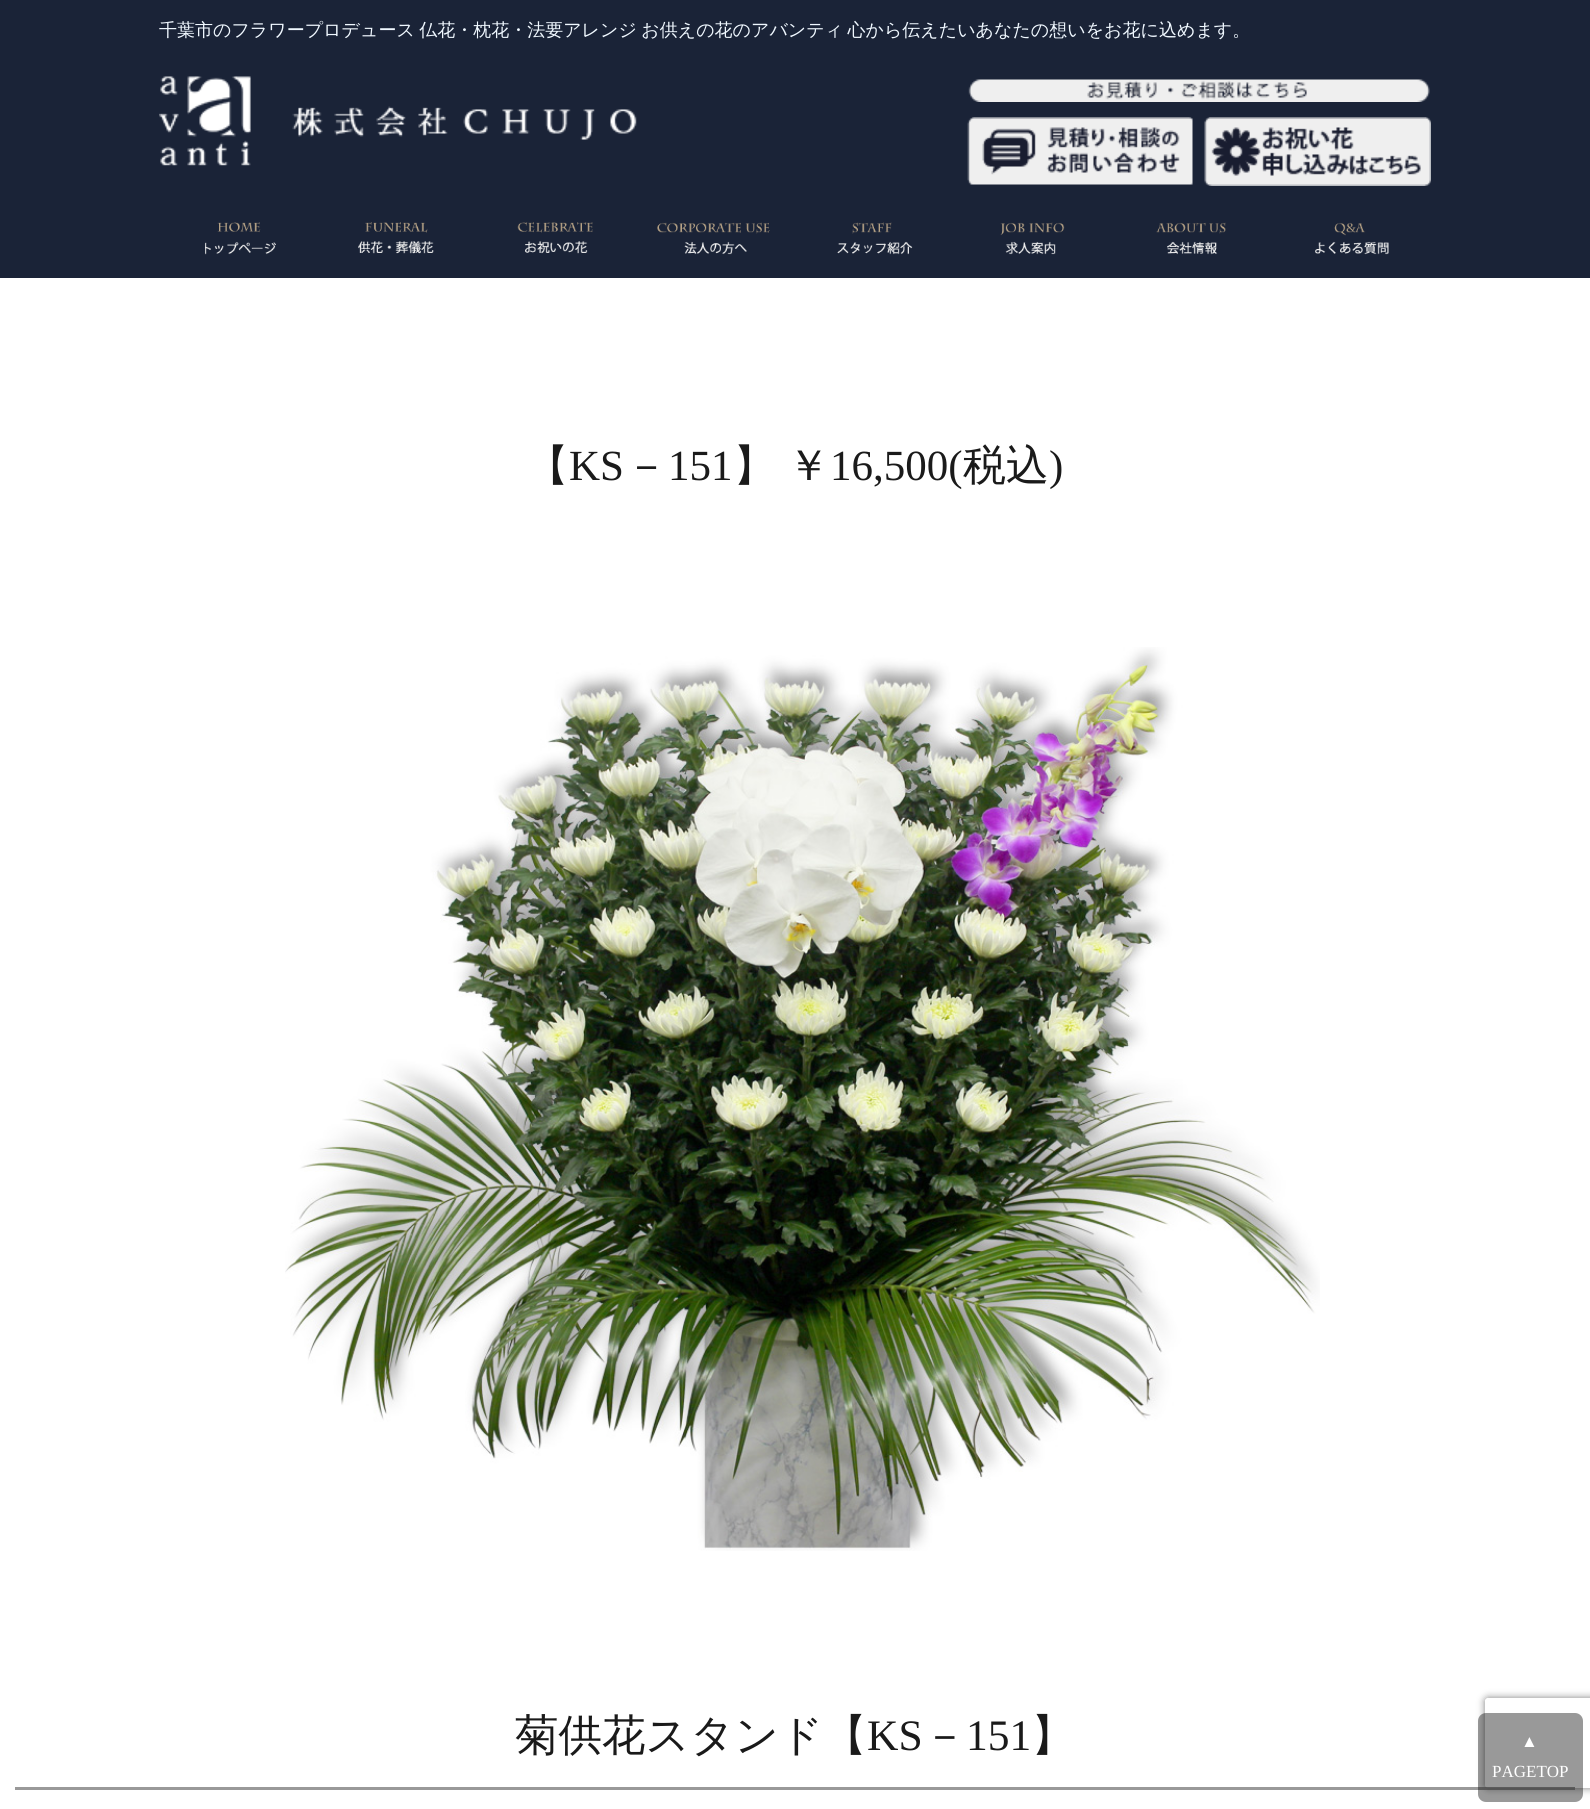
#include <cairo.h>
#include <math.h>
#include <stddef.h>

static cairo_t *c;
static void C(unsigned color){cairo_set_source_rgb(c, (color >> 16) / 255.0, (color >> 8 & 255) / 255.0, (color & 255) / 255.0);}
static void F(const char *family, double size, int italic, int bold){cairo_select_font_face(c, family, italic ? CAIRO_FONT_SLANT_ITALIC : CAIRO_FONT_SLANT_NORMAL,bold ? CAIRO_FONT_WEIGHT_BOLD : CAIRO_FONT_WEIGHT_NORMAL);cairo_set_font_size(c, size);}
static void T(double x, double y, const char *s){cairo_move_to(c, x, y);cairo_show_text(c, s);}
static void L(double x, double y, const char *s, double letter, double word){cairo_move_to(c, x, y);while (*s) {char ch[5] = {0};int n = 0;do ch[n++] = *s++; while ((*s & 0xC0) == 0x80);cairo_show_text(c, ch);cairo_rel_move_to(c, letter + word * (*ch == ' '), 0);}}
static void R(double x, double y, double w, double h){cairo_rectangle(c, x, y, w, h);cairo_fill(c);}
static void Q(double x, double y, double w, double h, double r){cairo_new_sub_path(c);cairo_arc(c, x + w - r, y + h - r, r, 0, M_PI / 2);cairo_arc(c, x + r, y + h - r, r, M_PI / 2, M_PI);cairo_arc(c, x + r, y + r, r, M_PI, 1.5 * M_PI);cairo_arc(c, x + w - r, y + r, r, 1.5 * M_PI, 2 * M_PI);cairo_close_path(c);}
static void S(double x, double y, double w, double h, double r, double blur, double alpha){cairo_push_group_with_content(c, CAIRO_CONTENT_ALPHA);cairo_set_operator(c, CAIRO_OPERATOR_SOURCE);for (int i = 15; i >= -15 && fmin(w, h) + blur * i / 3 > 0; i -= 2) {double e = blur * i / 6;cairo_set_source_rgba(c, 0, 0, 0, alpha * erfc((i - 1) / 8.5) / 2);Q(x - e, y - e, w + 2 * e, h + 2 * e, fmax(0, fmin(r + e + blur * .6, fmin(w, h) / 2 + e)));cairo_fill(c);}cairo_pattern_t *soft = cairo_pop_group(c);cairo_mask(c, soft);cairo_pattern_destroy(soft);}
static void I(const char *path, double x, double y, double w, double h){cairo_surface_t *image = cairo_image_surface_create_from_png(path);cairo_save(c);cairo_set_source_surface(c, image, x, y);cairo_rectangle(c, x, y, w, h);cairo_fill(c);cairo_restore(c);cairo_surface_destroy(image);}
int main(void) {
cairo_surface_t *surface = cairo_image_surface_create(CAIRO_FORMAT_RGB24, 1590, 1809);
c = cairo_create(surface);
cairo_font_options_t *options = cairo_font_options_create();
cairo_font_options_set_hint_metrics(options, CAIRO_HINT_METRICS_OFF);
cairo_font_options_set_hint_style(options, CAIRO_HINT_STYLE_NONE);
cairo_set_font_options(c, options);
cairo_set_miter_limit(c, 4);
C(0xffffff);
cairo_paint(c);
C(0x1a2337);
R(0,0,1590,278);
F("WenQuanYi Zen Hei Medium",18,0,0);
C(0xf0f8ff);
L(159,36,"千葉市のフラワープロデュース 仏花・枕花・法要アレンジ お供えの花のアバンティ 心から伝えたいあなたの想いをお花に込めます。",0,-1);
I("1.png",159,76,478,90);
I("2.png",968,79,462,23);
I("3.png",967,117,226,68);
I("4.png",1204,117,227,69);
I("5.png",205,222,71,33);
I("6.png",358,222,76,32);
I("7.png",517,222,76,32);
I("8.png",657,222,113,33);
I("9.png",837,222,76,33);
I("10.png",1000,222,65,33);
I("11.png",1156,222,70,33);
I("12.png",1315,222,74,33);
F("WenQuanYi Zen Hei Medium",43,0,0);
C(0x1a1a1a);
T(526,480,"【");
F("Liberation Serif",43,0,0);
T(569,480,"KS");
F("WenQuanYi Zen Hei Medium",43,0,0);
T(625,480,"－");
F("Liberation Serif",43,0,0);
T(668,480,"151");
F("WenQuanYi Zen Hei Medium",43,0,0);
L(733,480,"】 ￥",0,-2);
F("Liberation Serif",43,0,0);
T(830,480,"16,500(");
F("WenQuanYi Zen Hei Medium",43,0,0);
T(963,480,"税込");
F("Liberation Serif",43,0,0);
T(1049,480,")");
I("13.png",285,647,1035,904);
C(0x999999);
R(15,1787,1560,3);
F("WenQuanYi Zen Hei Medium",43.5,0,0);
C(0x1a1a1a);
T(515,1750,"菊供花スタンド【");
F("Liberation Serif",43.5,0,0);
T(867,1750,"KS");
F("WenQuanYi Zen Hei Medium",43.5,0,0);
T(923,1750,"－");
F("Liberation Serif",43.5,0,0);
T(966,1750,"151");
F("WenQuanYi Zen Hei Medium",43.5,0,0);
T(1031,1750,"】");
cairo_save(c);
cairo_set_fill_rule(c,CAIRO_FILL_RULE_EVEN_ODD);
cairo_new_path(c);
cairo_move_to(c,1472,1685);
cairo_line_to(c,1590,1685);
cairo_line_to(c,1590,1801);
cairo_line_to(c,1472,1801);
cairo_close_path(c);
cairo_move_to(c,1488,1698);
cairo_line_to(c,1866,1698);
cairo_curve_to(c,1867.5,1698,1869,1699.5,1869,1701);
cairo_line_to(c,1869,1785);
cairo_curve_to(c,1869,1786.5,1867.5,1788,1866,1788);
cairo_line_to(c,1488,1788);
cairo_curve_to(c,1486.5,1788,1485,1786.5,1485,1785);
cairo_line_to(c,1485,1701);
cairo_curve_to(c,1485,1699.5,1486.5,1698,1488,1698);
cairo_close_path(c);
cairo_clip(c);
C(0x808080);
S(1485,1698,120,90,3,4,1);
cairo_restore(c);
cairo_set_source_rgba(c,0,0,0,0.4);
Q(1478,1713,105,89,8);
cairo_fill(c);
F("Liberation Serif",17,0,0);
C(0xffffff);
T(1521,1747,"▲");
T(1492,1777,"PAGETOP");
cairo_surface_write_to_png(surface, "o.png");
cairo_font_options_destroy(options);
cairo_destroy(c);
cairo_surface_destroy(surface);
return 0;
}
